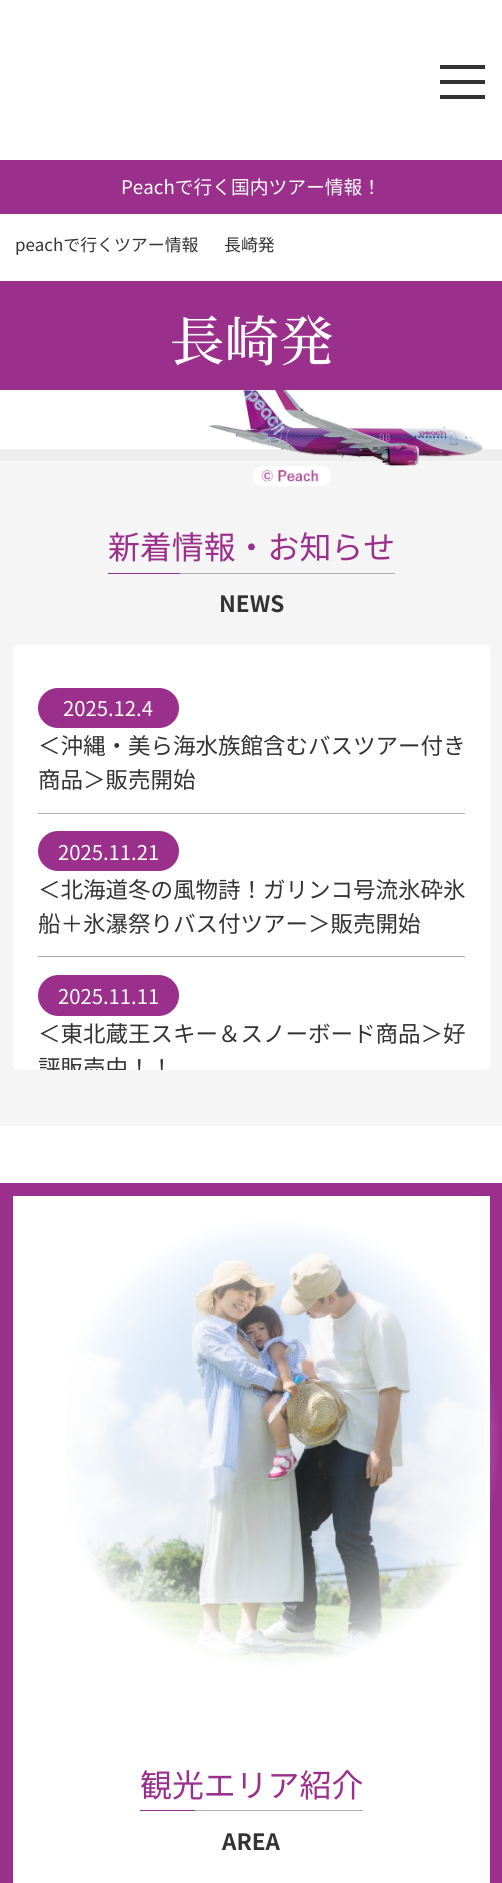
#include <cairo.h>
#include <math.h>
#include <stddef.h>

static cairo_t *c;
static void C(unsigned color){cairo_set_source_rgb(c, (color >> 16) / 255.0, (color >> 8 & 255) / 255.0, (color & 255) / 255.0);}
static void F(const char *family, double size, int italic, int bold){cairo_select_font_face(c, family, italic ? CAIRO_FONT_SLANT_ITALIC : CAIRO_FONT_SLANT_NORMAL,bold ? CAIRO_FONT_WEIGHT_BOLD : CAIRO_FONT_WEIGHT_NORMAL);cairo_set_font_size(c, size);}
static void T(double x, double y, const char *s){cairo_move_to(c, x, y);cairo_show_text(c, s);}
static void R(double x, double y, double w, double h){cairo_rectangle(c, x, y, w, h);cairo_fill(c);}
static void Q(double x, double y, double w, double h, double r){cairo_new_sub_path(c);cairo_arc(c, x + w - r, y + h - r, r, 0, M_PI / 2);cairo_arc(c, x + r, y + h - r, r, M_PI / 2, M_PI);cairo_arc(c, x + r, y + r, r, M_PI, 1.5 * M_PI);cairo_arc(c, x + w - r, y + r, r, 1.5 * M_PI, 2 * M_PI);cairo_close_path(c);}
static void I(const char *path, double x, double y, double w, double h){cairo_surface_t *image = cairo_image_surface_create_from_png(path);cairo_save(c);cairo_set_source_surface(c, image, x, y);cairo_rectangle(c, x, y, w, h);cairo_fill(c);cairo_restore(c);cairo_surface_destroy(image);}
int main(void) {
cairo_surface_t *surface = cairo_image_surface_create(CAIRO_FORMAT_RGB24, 502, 1883);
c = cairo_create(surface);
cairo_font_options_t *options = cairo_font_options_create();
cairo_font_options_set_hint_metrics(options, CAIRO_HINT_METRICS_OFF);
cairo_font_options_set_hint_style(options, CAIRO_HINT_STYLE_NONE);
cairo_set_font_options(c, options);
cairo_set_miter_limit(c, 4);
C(0xffffff);
cairo_paint(c);
C(0x333333);
R(440,65,45,4);
R(440,80,45,4);
R(440,95,45,4);
C(0x9b308c);
R(0,160,502,54);
F("Noto Sans JP",18.75,0,0);
C(0xffffff);
T(121,194,"Peachで行く国内ツアー情報！");
F("Noto Sans JP",16.9,0,0);
C(0x333333);
T(15,251,"peachで行くツアー情報");
T(224,251,"長崎発");
C(0x9b308c);
R(0,281,502,109);
F("Noto Serif JP Medium",54.5,0,0);
C(0xffffff);
T(170,361,"長崎発");
C(0xf5f5f5);
R(0,461,502,665);
C(0xeeeeee);
R(0,449,502,12);
I("1.png",208,390,275,96);
F("Noto Sans JP",31.9,0,0);
C(0x9b308c);
T(108,559,"新着情報・お知らせ");
R(108,573,72,1);
C(0xacacac);
R(180,573,215,1);
F("Noto Sans JP",22.5,0,1);
C(0x333333);
T(219,612,"NEWS");
C(0xffffff);
Q(13,645,477,425,5);
cairo_fill(c);
C(0x9b308c);
Q(38,688,141,40,20);
cairo_fill(c);
F("Noto Sans JP",20.25,0,0);
C(0xffffff);
T(63,716,"2025.12.4");
F("Noto Sans JP",22.5,0,0);
C(0x333333);
T(38,754,"＜沖縄・美ら海水族館含むバスツアー付き");
T(38,788,"商品＞販売開始");
C(0xacacac);
R(38,813,427,1);
C(0x9b308c);
Q(38,831,141,40,20);
cairo_fill(c);
F("Noto Sans JP",20.25,0,0);
C(0xffffff);
T(58,860,"2025.11.21");
F("Noto Sans JP",22.5,0,0);
C(0x333333);
T(38,898,"＜北海道冬の風物詩！ガリンコ号流氷砕氷");
T(38,932,"船＋氷瀑祭りバス付ツアー＞販売開始");
C(0xacacac);
R(38,956,427,1);
C(0x9b308c);
Q(38,975,141,41,20.5);
cairo_fill(c);
F("Noto Sans JP",20.25,0,0);
C(0xffffff);
T(58,1004,"2025.11.11");
F("Noto Sans JP",22.5,0,0);
C(0x333333);
T(38,1042,"＜東北蔵王スキー＆スノーボード商品＞好");
cairo_save(c);
Q(13,645,477,425,5);
cairo_clip(c);
T(38,1076,"評販売中！！");
cairo_restore(c);
cairo_rectangle(c,6.5,1189.5,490,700);
C(0x9b308c);
cairo_set_line_width(c,13);
cairo_stroke(c);
I("2.png",65,1223,434,442);
F("Noto Sans JP",31.9,0,0);
T(140,1797,"観光エリア紹介");
R(140,1810,55,1);
C(0xacacac);
R(195,1810,168,1);
F("Noto Sans JP",22.5,0,1);
C(0x333333);
T(222,1850,"AREA");
cairo_surface_write_to_png(surface, "o.png");
cairo_font_options_destroy(options);
cairo_destroy(c);
cairo_surface_destroy(surface);
return 0;
}
